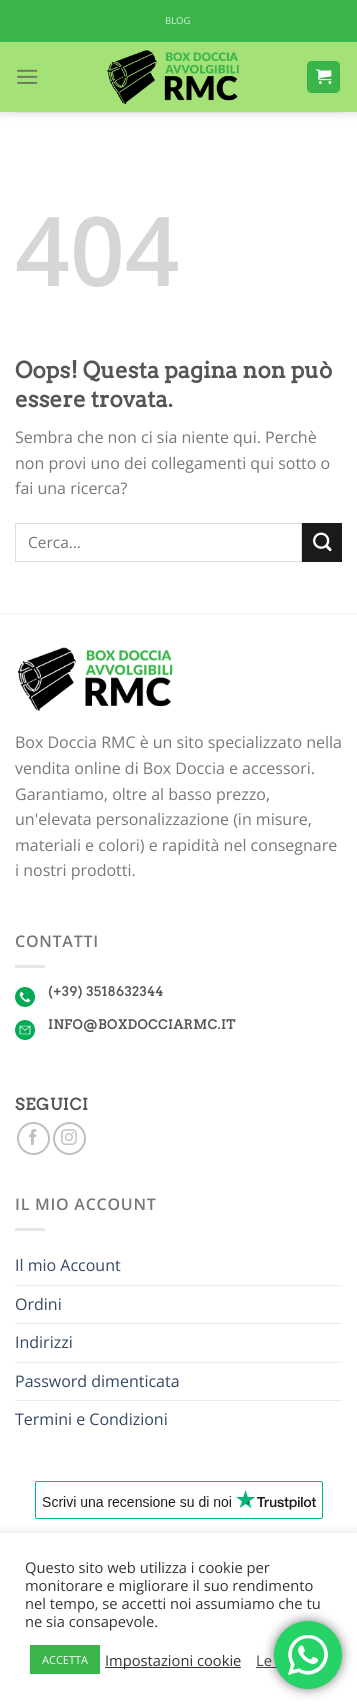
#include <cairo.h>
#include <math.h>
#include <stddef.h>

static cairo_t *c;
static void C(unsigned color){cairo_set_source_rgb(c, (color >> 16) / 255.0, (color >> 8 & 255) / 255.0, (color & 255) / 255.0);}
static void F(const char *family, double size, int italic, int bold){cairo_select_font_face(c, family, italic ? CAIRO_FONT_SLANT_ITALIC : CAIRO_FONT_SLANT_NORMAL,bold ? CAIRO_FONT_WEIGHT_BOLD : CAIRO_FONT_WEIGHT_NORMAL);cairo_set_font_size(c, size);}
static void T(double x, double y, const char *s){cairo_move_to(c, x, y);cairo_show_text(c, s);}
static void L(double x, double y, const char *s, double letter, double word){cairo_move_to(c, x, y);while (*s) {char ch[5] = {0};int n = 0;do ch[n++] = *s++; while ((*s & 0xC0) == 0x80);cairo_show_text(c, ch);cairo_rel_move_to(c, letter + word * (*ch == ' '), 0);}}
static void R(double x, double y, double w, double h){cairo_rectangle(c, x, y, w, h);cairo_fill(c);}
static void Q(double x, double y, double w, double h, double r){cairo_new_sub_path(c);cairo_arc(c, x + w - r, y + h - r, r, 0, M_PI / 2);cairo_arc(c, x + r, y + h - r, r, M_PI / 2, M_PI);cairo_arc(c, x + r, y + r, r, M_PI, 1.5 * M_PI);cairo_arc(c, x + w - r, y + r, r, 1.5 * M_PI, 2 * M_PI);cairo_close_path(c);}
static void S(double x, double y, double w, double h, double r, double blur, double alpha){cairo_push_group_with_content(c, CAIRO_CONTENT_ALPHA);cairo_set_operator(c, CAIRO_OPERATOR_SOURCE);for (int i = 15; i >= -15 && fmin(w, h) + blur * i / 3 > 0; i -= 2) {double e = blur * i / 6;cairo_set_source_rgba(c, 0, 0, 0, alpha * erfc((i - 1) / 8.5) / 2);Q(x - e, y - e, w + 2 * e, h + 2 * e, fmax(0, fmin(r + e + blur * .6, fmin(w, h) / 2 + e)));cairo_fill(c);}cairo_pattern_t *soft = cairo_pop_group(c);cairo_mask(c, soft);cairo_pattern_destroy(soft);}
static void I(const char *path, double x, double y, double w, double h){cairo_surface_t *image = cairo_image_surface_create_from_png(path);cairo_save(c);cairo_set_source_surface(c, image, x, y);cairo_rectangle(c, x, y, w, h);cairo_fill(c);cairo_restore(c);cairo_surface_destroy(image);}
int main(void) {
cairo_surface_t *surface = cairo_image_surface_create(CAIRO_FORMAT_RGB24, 357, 1704);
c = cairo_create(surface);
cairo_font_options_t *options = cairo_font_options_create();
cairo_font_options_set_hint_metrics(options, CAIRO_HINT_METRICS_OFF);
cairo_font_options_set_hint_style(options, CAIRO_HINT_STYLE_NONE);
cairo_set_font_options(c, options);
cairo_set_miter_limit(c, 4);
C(0xffffff);
cairo_paint(c);
C(0x000000);
S(1,1,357,112,0,5,.15);
C(0x3ab54a);
R(0,0,357,42);
F("Open Sans",9.5,0,0);
C(0xd8f0db);
T(165,24,"BLOG");
C(0xa4e277);
R(0,42,357,70);
I("1.png",17,69,21,15);
I("2.png",107,50,132,55);
C(0x3ab54a);
Q(307,61,33,32,5);
cairo_fill(c);
cairo_rectangle(c,307.5,61.5,32,31);
cairo_set_source_rgba(c,0,0,0,0.05);
cairo_set_line_width(c,1);
cairo_stroke(c);
I("3.png",316,69,16,15);
C(0xdfdfdf);
R(15,112,327,1);
F("Open Sans SemiBold",96,0,0);
C(0xd6d6d6);
T(15,286,"404");
F("Arvo",22.4,0,1);
C(0x555555);
T(15,378,"Oops! Questa pagina non può");
T(15,407,"essere trovata.");
F("Open Sans",16,0,0);
C(0x777777);
T(15,443,"Sembra che non ci sia niente qui. Perchè");
T(15,469,"non provi uno dei collegamenti qui sotto o");
T(15,494,"fai una ricerca?");
cairo_rectangle(c,15.5,523.5,286,38);
C(0xdddddd);
cairo_stroke(c);
F("Open Sans",15.5,0,0);
C(0x777777);
T(28,548,"Cerca…");
C(0x1a1a1a);
R(302,523,40,39);
I("4.png",313,532,19,20);
C(0xf2f2f2);
R(0,613,357,1);
I("5.png",18,647,155,64);
F("Open Sans",16,0,0);
C(0x777777);
T(15,748,"Box Doccia RMC è un sito specializzato nella");
T(15,774,"vendita online di Box Doccia e accessori.");
T(15,800,"Garantiamo, oltre al basso prezzo,");
T(15,825,"un'elevata personalizzazione (in misure,");
T(15,851,"materiali e colori) e rapidità nel consegnare");
T(15,876,"i nostri prodotti.");
F("Open Sans SemiBold",16,0,0);
L(15,947,"CONTATTI",.75,0);
C(0xe6e6e6);
R(15,965,30,3);
I("6.png",15,987,20,20);
F("Arvo",12.75,0,1);
C(0x555555);
L(48,996,"(+39) 3518632344",.6,0);
I("7.png",15,1020,20,20);
L(48,1029,"INFO@BOXDOCCIARMC.IT",.6,0);
F("Arvo",16,0,1);
L(15,1110,"SEGUICI",.75,0);
cairo_new_path(c);
cairo_arc(c,33.5,1138.5,15.5,0,2 * M_PI);
C(0xc0c0c0);
cairo_set_line_width(c,2);
cairo_stroke(c);
I("8.png",29,1129,8,16);
cairo_arc(c,69.5,1138.5,15.5,0,2 * M_PI);
cairo_stroke(c);
I("9.png",61,1129,16,16);
F("Open Sans SemiBold",16,0,0);
C(0x777777);
L(15,1210,"IL MIO ACCOUNT",.75,0);
C(0xe6e6e6);
R(15,1228,30,3);
F("Open Sans",16,0,0);
C(0x334862);
T(15,1271,"Il mio Account");
C(0xececec);
R(15,1285,327,1);
C(0x334862);
T(15,1310,"Ordini");
C(0xececec);
R(15,1323,327,1);
C(0x334862);
T(15,1348,"Indirizzi");
C(0xececec);
R(15,1362,327,1);
C(0x334862);
T(15,1387,"Password dimenticata");
C(0xececec);
R(15,1400,327,1);
C(0x334862);
T(15,1425,"Termini e Condizioni");
I("10.png",35,1481,288,38);
C(0xacabab);
S(0,1532,357,171,0,5,.3);
C(0xffffff);
R(0,1533,357,171);
F("Open Sans",14.7,0,0);
C(0x333333);
T(25,1573,"Questo sito web utilizza i cookie per");
T(25,1591,"monitorare e migliorare il suo rendimento");
T(25,1609,"nel tempo, se accetti noi assumiamo che tu");
T(25,1627,"ne sia consapevole.");
C(0x3ab54a);
R(30,1645,70,29);
F("Open Sans",11,0,0);
C(0xffffff);
T(42,1664,"ACCETTA");
C(0x333333);
R(105,1667,136,1);
F("Open Sans",14.7,0,0);
T(105,1666,"Impostazioni cookie");
C(0x444444);
T(256,1666,"Le");
R(256,1667,21,1);
C(0x000000);
S(274,1621,68,68,34,5.5,.5);
C(0x25d366);
cairo_arc(c,308,1655,34,0,2 * M_PI);
cairo_fill(c);
I("11.png",288,1635,40,40);
cairo_surface_write_to_png(surface, "o.png");
cairo_font_options_destroy(options);
cairo_destroy(c);
cairo_surface_destroy(surface);
return 0;
}
